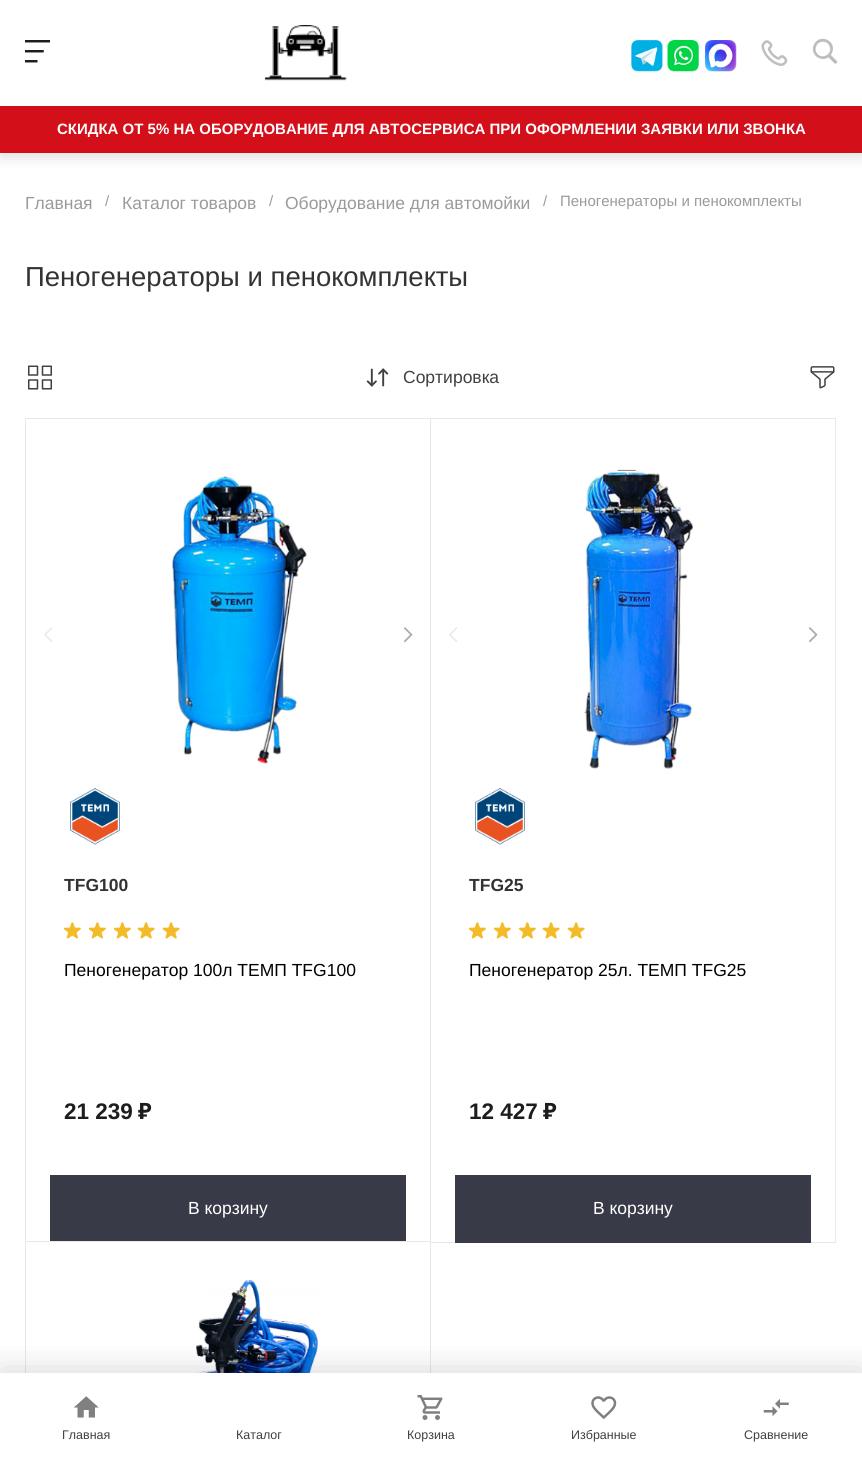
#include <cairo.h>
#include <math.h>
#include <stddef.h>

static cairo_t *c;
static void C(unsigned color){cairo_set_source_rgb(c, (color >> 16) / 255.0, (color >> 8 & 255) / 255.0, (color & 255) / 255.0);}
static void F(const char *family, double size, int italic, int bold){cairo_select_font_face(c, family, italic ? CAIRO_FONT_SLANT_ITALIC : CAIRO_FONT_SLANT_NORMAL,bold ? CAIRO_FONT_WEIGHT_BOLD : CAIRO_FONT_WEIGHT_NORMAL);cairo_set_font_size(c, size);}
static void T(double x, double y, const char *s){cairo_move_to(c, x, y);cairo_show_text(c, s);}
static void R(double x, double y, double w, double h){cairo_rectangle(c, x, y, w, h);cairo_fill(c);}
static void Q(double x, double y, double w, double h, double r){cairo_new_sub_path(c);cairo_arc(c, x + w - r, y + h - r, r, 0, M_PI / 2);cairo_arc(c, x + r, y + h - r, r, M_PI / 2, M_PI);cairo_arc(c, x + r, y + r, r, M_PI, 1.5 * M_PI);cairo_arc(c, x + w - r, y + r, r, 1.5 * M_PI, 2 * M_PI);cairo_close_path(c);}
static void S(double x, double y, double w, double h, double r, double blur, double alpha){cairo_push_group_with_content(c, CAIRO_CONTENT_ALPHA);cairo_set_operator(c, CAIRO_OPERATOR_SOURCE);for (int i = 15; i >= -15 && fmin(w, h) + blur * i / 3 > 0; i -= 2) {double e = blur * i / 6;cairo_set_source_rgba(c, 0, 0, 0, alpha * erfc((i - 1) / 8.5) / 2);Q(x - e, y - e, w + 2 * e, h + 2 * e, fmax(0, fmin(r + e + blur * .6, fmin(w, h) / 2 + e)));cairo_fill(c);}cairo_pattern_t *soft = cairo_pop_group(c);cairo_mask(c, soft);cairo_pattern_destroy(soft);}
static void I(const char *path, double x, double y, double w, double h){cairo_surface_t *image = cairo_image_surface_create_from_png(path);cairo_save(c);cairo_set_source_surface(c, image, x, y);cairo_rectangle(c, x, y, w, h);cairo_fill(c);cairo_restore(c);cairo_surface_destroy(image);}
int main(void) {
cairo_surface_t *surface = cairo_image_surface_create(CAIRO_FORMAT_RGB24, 862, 1464);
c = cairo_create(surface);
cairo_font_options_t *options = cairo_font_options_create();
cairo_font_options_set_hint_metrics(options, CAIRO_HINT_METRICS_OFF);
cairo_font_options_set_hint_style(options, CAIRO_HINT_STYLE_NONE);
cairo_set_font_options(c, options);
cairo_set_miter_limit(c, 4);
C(0xffffff);
cairo_paint(c);
C(0x000000);
S(0,6,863,153,0,6,.1);
C(0xffffff);
R(0,0,862,106);
I("1.png",25,40,25,23);
I("2.png",264,25,83,56);
I("3.png",631,40,32,32);
I("4.png",667,40,32,32);
I("5.png",705,40,32,32);
I("6.png",761,40,27,26);
I("7.png",812,38,26,26);
C(0xd30f1a);
R(0,106,862,47);
F("Liberation Sans",15,0,1);
C(0xffffff);
T(57,134,"СКИДКА ОТ 5% НА ОБОРУДОВАНИЕ ДЛЯ АВТОСЕРВИСА ПРИ ОФОРМЛЕНИИ ЗАЯВКИ ИЛИ ЗВОНКА");
F("Liberation Sans",17.5,0,0);
C(0x9a9a9a);
T(25,209,"Главная");
F("Liberation Sans",15,0,0);
T(105,206,"/");
F("Liberation Sans",17.5,0,0);
T(122,209,"Каталог товаров");
F("Liberation Sans",15,0,0);
T(269,206,"/");
F("Liberation Sans",17.5,0,0);
T(285,209,"Оборудование для автомойки");
F("Liberation Sans",15,0,0);
T(543,206,"/");
T(560,206,"Пеногенераторы и пенокомплекты");
F("Liberation Sans",27.5,0,0);
C(0x333333);
T(25,286,"Пеногенераторы и пенокомплекты");
cairo_rectangle(c,25.5,418.5,405,824);
C(0xe8e8e8);
cairo_set_line_width(c,1);
cairo_stroke(c);
cairo_rectangle(c,430.5,418.5,405,824);
cairo_stroke(c);
C(0xffffff);
R(26,1242,404,1);
cairo_rectangle(c,25.5,1241.5,405,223);
C(0xe8e8e8);
cairo_stroke(c);
I("22.png",196,1280,122,93);
C(0x1b1e25);
S(0,1368,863,92,0,15,.08);
S(0,1368,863,92,0,15,.08);
C(0xffffff);
R(0,1373,862,91);
I("8.png",73,1396,26,22);
F("Liberation Sans",12.5,0,0);
C(0x404040);
T(62,1439,"Главная");
T(236,1439,"Каталог");
I("9.png",417,1395,26,25);
T(407,1439,"Корзина");
I("10.png",591,1396,26,24);
T(571,1439,"Избранные");
I("11.png",763,1399,26,17);
T(744,1439,"Сравнение");
I("12.png",28,365,24,25);
I("13.png",366,368,23,19);
F("Liberation Sans",17.5,0,0);
T(403,383,"Сортировка");
I("14.png",810,366,25,23);
I("15.png",172,476,135,288);
I("16.png",44,627,9,15);
I("17.png",403,627,10,16);
I("18.png",70,788,50,57);
F("Liberation Sans",17.5,0,1);
C(0x333333);
T(64,891,"TFG100");
I("19.png",63,922,18,17);
I("19.png",88,922,18,17);
I("19.png",113,922,18,17);
I("20.png",137,922,18,17);
I("20.png",162,922,18,17);
F("Liberation Sans",17.5,0,0);
C(0x000000);
T(64,976,"Пеногенератор 100л ТЕМП TFG100");
F("Liberation Sans",22.5,0,1);
C(0x1d1d1d);
T(64,1119,"21 239");
F("Noto Sans",22.5,0,1);
T(138,1119,"₽");
C(0x383b47);
R(50,1175,356,66);
F("Liberation Sans",17.5,0,0);
C(0xffffff);
T(188,1214,"В корзину");
I("21.png",583,469,110,300);
I("16.png",449,627,9,15);
I("17.png",808,627,10,16);
I("18.png",475,788,50,57);
F("Liberation Sans",17.5,0,1);
C(0x333333);
T(469,891,"TFG25");
I("19.png",468,922,18,17);
I("19.png",493,922,18,17);
I("19.png",518,922,18,17);
I("20.png",542,922,18,17);
I("20.png",567,922,18,17);
F("Liberation Sans",17.5,0,0);
C(0x000000);
T(469,976,"Пеногенератор 25л. ТЕМП TFG25");
F("Liberation Sans",22.5,0,1);
C(0x1d1d1d);
T(469,1119,"12 427");
F("Noto Sans",22.5,0,1);
T(543,1119,"₽");
C(0x383b47);
R(455,1175,356,68);
F("Liberation Sans",17.5,0,0);
C(0xffffff);
T(593,1214,"В корзину");
cairo_surface_write_to_png(surface, "o.png");
cairo_font_options_destroy(options);
cairo_destroy(c);
cairo_surface_destroy(surface);
return 0;
}
